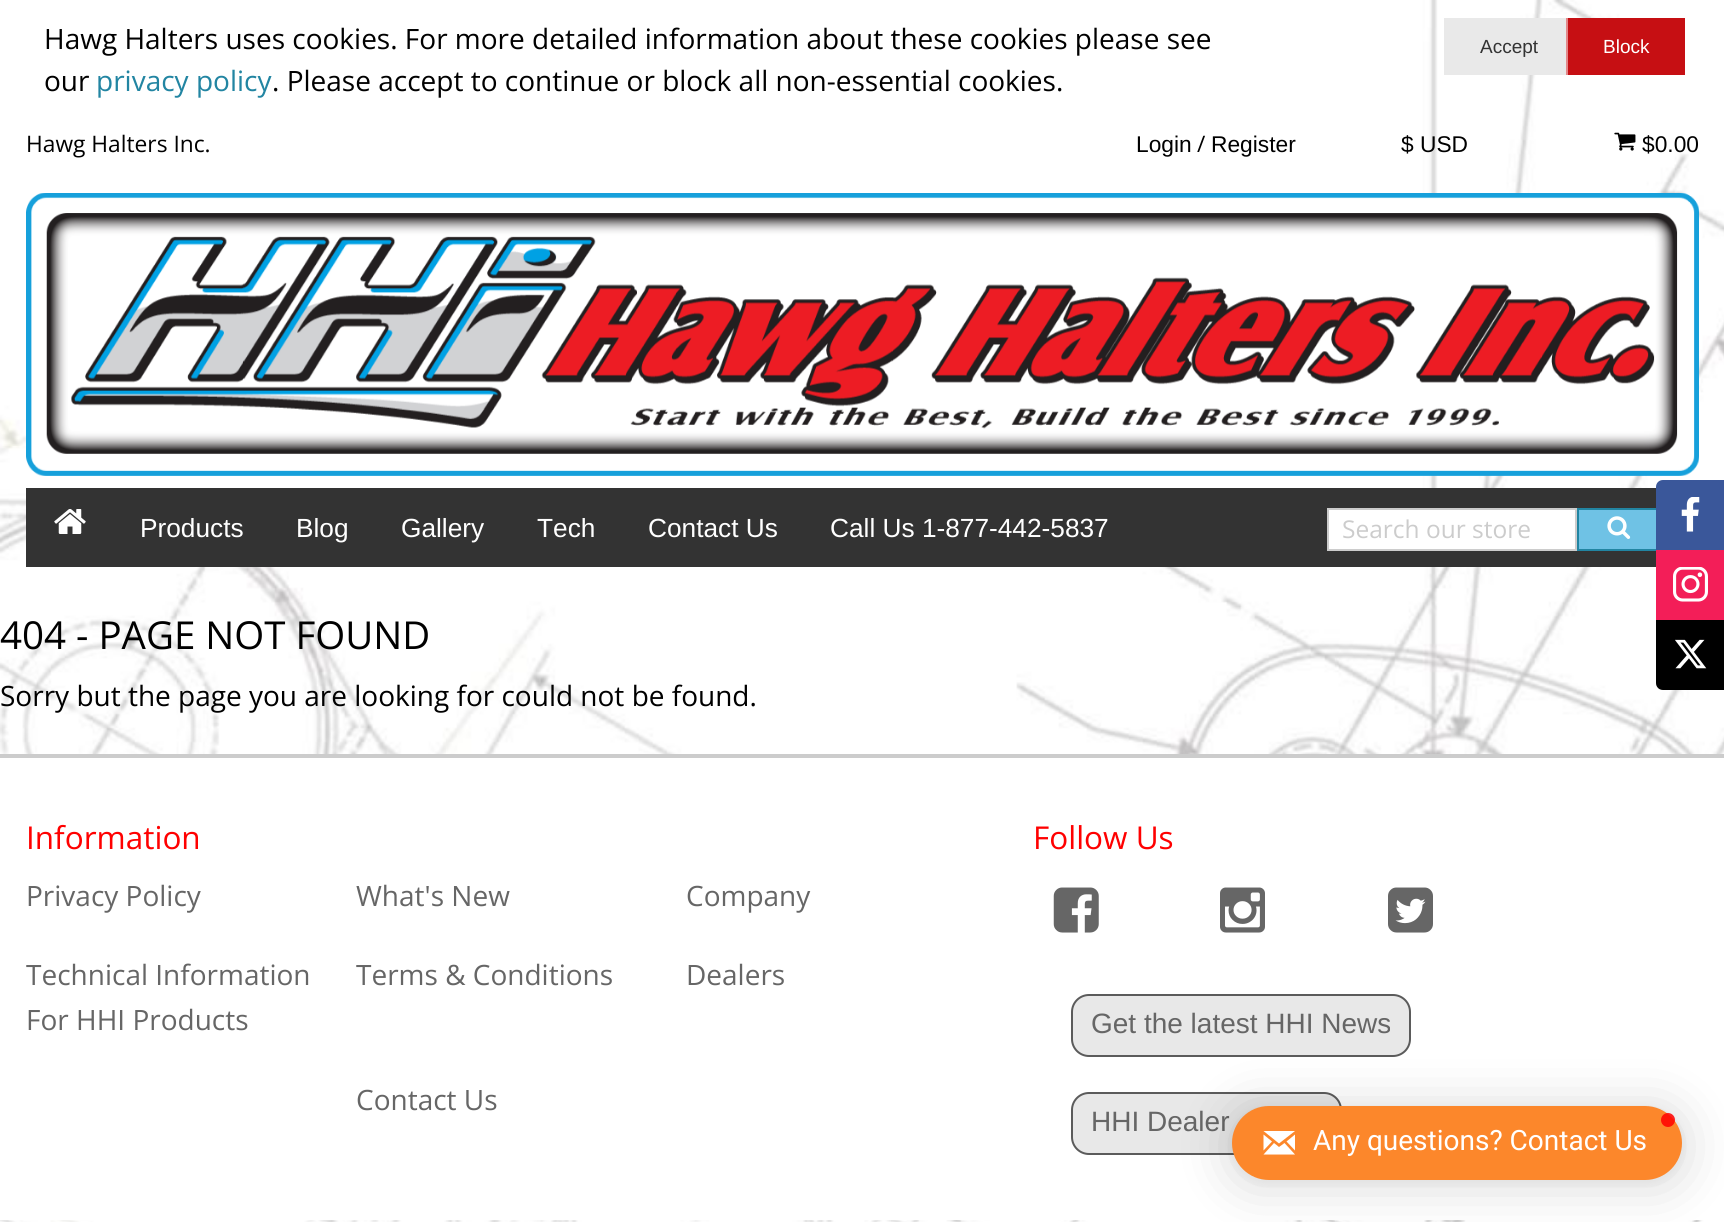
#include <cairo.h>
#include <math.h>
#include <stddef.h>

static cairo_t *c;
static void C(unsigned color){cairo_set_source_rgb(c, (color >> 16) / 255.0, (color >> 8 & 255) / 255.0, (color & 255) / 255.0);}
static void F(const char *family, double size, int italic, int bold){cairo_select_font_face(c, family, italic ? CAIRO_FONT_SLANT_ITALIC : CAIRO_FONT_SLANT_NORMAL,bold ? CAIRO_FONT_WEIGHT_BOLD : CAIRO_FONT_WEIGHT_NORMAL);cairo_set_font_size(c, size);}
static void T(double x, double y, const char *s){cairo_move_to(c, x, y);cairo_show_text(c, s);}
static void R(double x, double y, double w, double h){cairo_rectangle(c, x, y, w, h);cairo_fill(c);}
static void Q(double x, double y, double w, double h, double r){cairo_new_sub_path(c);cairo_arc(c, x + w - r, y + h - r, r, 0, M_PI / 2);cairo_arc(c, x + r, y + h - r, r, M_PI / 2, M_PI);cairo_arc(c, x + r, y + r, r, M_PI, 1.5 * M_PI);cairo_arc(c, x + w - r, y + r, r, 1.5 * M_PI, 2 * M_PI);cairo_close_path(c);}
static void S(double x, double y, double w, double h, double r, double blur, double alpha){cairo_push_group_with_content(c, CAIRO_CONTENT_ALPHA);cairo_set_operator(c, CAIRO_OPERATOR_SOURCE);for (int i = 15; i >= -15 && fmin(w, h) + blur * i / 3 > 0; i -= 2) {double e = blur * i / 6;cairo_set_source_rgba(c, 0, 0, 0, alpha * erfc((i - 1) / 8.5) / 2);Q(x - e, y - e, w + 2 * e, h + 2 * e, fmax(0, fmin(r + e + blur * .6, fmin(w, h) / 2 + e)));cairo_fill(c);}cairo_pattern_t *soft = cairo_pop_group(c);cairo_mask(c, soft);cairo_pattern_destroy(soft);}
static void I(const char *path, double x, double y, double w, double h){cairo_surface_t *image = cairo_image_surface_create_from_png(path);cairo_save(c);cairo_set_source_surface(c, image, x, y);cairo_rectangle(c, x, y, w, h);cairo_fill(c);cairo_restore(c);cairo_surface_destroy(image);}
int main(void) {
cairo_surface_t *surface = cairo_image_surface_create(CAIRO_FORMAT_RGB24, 1724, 1222);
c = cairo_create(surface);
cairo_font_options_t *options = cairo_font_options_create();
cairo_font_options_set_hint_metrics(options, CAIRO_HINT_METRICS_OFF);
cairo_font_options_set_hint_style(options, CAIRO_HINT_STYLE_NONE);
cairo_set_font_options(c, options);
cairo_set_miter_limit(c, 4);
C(0xffffff);
cairo_paint(c);
I("1.png",0,0,1724,1222);
F("Open Sans",28,0,0);
C(0x000000);
T(44,49,"Hawg Halters uses cookies. For more detailed information about these cookies please see");
T(44,91,"our");
C(0x2285a2);
T(96,91,"privacy policy");
C(0x000000);
T(272,91,". Please accept to continue or block all non-essential cookies.");
C(0xe9e9e9);
R(1444,18,122,57);
F("Liberation Sans",19,0,0);
C(0x333333);
T(1480,53,"Accept");
C(0xc60f13);
R(1568,18,117,57);
C(0xe38789);
R(1566,18,2,57);
C(0xffffff);
T(1603,53,"Block");
F("Open Sans",22.75,0,0);
C(0x000000);
T(26,152,"Hawg Halters Inc.");
F("Liberation Sans",22.75,0,0);
T(1136,152,"Login");
F("Open Sans",22.75,0,0);
T(1197,152,"/");
F("Liberation Sans",22.75,0,0);
T(1211,152,"Register");
T(1401,152,"$ USD");
I("2.png",1614,132,22,19);
T(1642,152,"$0.00");
I("3.png",26,193,1673,283);
C(0x333333);
R(26,488,1630,79);
I("4.png",54,509,32,25);
F("Liberation Sans",26.25,0,0);
C(0xffffff);
T(140,537,"Products");
T(296,537,"Blog");
T(401,537,"Gallery");
T(537,537,"Tech");
T(648,537,"Contact Us");
T(830,537,"Call Us 1-877-442-5837");
cairo_rectangle(c,1328,509,248,41);
cairo_fill_preserve(c);
C(0xcccccc);
cairo_stroke(c);
F("Open Sans",24.5,0,0);
T(1342,538,"Search our store");
C(0x6fc2e5);
R(1579,510,77,39);
cairo_rectangle(c,1578,509,82,41);
C(0x2285a2);
cairo_stroke(c);
I("5.png",1607,516,24,23);
F("Open Sans",38.5,0,0);
C(0x000000);
T(0,649,"404 - PAGE NOT FOUND");
F("Open Sans",28,0,0);
T(0,706,"Sorry but the page you are looking for could not be found.");
C(0xffffff);
R(0,758,1724,462);
C(0xcccccc);
R(0,754,1724,4);
F("Open Sans",31.5,0,0);
C(0xff0000);
T(26,849,"Information");
F("Open Sans",28,0,0);
C(0x666666);
T(26,906,"Privacy Policy");
T(356,906,"What's New");
T(686,906,"Company");
T(26,985,"Technical Information");
T(26,1030,"For HHI Products");
T(356,985,"Terms & Conditions");
T(686,985,"Dealers");
T(356,1110,"Contact Us");
F("Open Sans",31.5,0,0);
C(0xff0000);
T(1033,849,"Follow Us");
I("6.png",1053,887,46,46);
I("7.png",1220,887,45,46);
I("8.png",1388,887,45,46);
C(0xe8e8e8);
Q(1072,995,338,61,17);
cairo_fill_preserve(c);
C(0x5b5b5b);
cairo_stroke(c);
F("Liberation Sans",28,0,0);
C(0x666666);
T(1091,1033,"Get the latest HHI News");
C(0xe8e8e8);
Q(1072,1093,269,61,17);
cairo_fill_preserve(c);
C(0x5b5b5b);
cairo_stroke(c);
C(0x666666);
T(1091,1131,"HHI Dealer");
C(0x3a579a);
cairo_new_path(c);
cairo_move_to(c,1663,480);
cairo_line_to(c,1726,480);
cairo_line_to(c,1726,550);
cairo_line_to(c,1656,550);
cairo_line_to(c,1656,487);
cairo_curve_to(c,1656,483,1659,480,1663,480);
cairo_close_path(c);
cairo_fill(c);
I("9.png",1681,497,19,35);
C(0xf31e58);
R(1656,550,68,70);
I("10.png",1673,567,35,35);
C(0x000000);
cairo_new_path(c);
cairo_move_to(c,1656,620);
cairo_line_to(c,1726,620);
cairo_line_to(c,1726,690);
cairo_line_to(c,1663,690);
cairo_curve_to(c,1659,690,1656,687,1656,683);
cairo_close_path(c);
cairo_fill(c);
I("11.png",1675,639,32,30);
C(0x000000);
S(1232,1110,450,73,36.5,28,.16);
S(1232,1108,450,73,36.5,5,.06);
C(0xfc872b);
Q(1232,1106,450,74,37);
cairo_fill(c);
cairo_set_source_rgba(c,1,0,0,0.85);
cairo_arc(c,1668,1120,7,0,2 * M_PI);
cairo_fill(c);
C(0xffffff);
cairo_new_path(c);
cairo_move_to(c,1279,1143.5);
cairo_line_to(c,1263.5,1131);
cairo_line_to(c,1295,1131);
cairo_close_path(c);
cairo_move_to(c,1272,1141.5);
cairo_line_to(c,1263.5,1134.5);
cairo_line_to(c,1263.5,1150.5);
cairo_close_path(c);
cairo_move_to(c,1286.5,1141.5);
cairo_line_to(c,1295,1150.5);
cairo_line_to(c,1295,1134.5);
cairo_close_path(c);
cairo_move_to(c,1284.5,1143);
cairo_line_to(c,1279,1147);
cairo_line_to(c,1274,1143);
cairo_line_to(c,1263.5,1154.5);
cairo_line_to(c,1295,1154.5);
cairo_close_path(c);
cairo_fill(c);
F("Roboto",28,0,0);
T(1313,1150,"Any questions? Contact Us");
cairo_surface_write_to_png(surface, "o.png");
cairo_font_options_destroy(options);
cairo_destroy(c);
cairo_surface_destroy(surface);
return 0;
}
